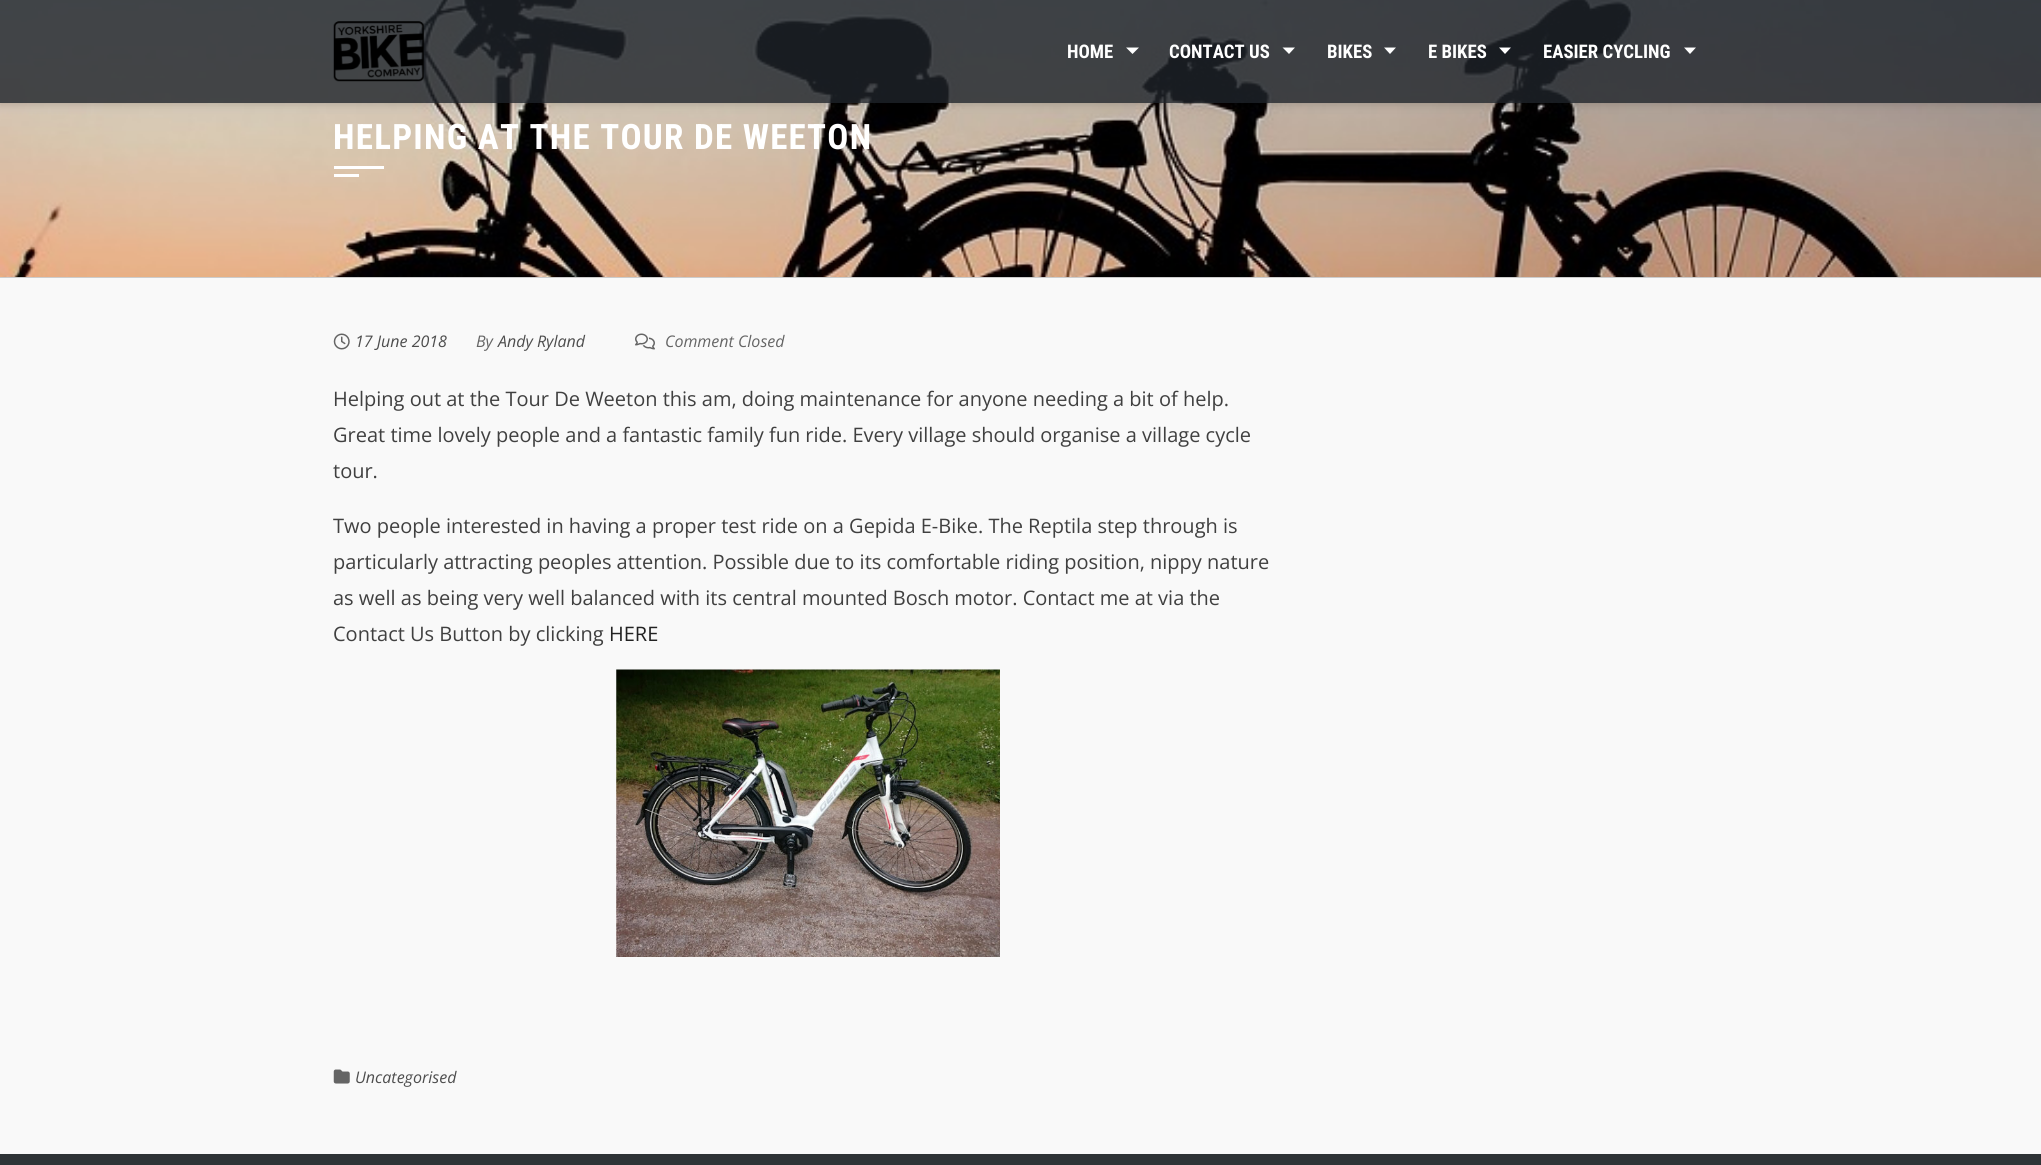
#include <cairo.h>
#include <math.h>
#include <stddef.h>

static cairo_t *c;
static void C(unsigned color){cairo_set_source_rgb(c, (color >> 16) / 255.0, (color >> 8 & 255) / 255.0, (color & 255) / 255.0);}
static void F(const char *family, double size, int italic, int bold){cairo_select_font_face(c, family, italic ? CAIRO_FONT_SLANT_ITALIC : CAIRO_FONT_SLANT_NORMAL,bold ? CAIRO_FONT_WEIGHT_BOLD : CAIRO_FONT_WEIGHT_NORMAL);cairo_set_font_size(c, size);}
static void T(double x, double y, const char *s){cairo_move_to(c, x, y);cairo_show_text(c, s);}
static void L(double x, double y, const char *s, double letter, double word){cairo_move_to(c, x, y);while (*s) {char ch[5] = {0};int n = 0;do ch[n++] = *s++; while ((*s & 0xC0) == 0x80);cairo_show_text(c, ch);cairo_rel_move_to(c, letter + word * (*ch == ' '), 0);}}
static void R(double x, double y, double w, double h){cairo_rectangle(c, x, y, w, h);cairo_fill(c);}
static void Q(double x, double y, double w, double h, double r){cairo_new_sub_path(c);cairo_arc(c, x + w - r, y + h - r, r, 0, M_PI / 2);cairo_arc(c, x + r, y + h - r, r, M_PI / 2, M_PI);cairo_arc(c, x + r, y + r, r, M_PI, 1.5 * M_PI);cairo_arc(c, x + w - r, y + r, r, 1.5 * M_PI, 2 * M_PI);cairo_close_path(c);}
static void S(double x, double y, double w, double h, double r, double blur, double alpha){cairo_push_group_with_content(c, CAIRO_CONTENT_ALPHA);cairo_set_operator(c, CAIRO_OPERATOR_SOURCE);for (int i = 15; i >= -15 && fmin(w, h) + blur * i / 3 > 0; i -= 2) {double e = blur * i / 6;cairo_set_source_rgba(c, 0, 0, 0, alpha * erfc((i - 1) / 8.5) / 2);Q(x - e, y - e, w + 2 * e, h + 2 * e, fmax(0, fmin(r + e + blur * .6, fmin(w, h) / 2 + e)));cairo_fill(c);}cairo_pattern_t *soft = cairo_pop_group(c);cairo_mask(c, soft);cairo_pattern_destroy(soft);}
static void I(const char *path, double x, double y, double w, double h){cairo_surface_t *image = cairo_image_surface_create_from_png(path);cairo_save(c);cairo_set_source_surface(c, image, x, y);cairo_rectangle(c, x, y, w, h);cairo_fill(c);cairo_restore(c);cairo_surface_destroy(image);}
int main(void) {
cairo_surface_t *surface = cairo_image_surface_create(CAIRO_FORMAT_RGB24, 2041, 1165);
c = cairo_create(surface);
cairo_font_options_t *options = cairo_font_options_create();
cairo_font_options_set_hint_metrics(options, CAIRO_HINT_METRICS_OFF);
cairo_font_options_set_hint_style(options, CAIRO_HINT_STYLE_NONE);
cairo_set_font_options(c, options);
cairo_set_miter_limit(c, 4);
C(0xf9f9f9);
cairo_paint(c);
I("2.png",0,0,2041,277);
cairo_save(c);
cairo_set_fill_rule(c,CAIRO_FILL_RULE_EVEN_ODD);
cairo_new_path(c);
cairo_move_to(c,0,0);
cairo_line_to(c,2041,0);
cairo_line_to(c,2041,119);
cairo_line_to(c,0,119);
cairo_close_path(c);
cairo_move_to(c,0,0);
cairo_line_to(c,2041,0);
cairo_line_to(c,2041,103);
cairo_line_to(c,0,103);
cairo_close_path(c);
cairo_clip(c);
C(0x000000);
S(0,0,2041,103,0,5,.2);
cairo_restore(c);
cairo_set_source_rgba(c,0.118,0.141,0.165,0.8);
R(0,0,2041,103);
I("1.png",333,21,91,61);
F("Roboto Condensed",18.75,0,1);
C(0xffffff);
T(1067,58,"HOME");
cairo_new_path(c);
cairo_move_to(c,1126,47.5);
cairo_line_to(c,1139,47.5);
cairo_line_to(c,1132.5,54);
cairo_close_path(c);
cairo_fill(c);
T(1169,58,"CONTACT US");
cairo_new_path(c);
cairo_move_to(c,1282.5,47.5);
cairo_line_to(c,1295,47.5);
cairo_line_to(c,1289,54);
cairo_close_path(c);
cairo_fill(c);
T(1327,58,"BIKES");
cairo_new_path(c);
cairo_move_to(c,1384,47.5);
cairo_line_to(c,1396,47.5);
cairo_line_to(c,1390,54);
cairo_close_path(c);
cairo_fill(c);
T(1428,58,"E BIKES");
cairo_new_path(c);
cairo_move_to(c,1499,47.5);
cairo_line_to(c,1511,47.5);
cairo_line_to(c,1505,54);
cairo_close_path(c);
cairo_fill(c);
T(1543,58,"EASIER CYCLING");
cairo_new_path(c);
cairo_move_to(c,1684,47.5);
cairo_line_to(c,1696,47.5);
cairo_line_to(c,1690,54);
cairo_close_path(c);
cairo_fill(c);
C(0xcccccc);
R(0,277,2041,1);
F("Roboto Condensed",35,0,1);
C(0xffffff);
L(333,149,"HELPING AT THE TOUR DE WEETON",1.25,0);
R(334,166,50,3);
R(334,174,25,3);
I("3.png",333,333,17,17);
F("Open Sans",16,1,0);
C(0x4d4d4d);
T(355,347,"17 June 2018");
C(0x656565);
T(476,347,"By");
C(0x4d4d4d);
T(498,347,"Andy Ryland");
I("4.png",635,333,20,17);
C(0x656565);
T(665,347,"Comment Closed");
F("Open Sans",20,0,0);
C(0x404040);
T(333,406,"Helping out at the Tour De Weeton this am, doing maintenance for anyone needing a bit of help.");
T(333,442,"Great time lovely people and a fantastic family fun ride. Every village should organise a village cycle");
T(333,478,"tour.");
T(333,533,"Two people interested in having a proper test ride on a Gepida E-Bike. The Reptila step through is");
T(333,569,"particularly attracting peoples attention. Possible due to its comfortable riding position, nippy nature");
T(333,605,"as well as being very well balanced with its central mounted Bosch motor. Contact me at via the");
T(333,641,"Contact Us Button by clicking");
C(0x222222);
T(609,641,"HERE");
I("5.png",616,669,384,288);
I("6.png",333,1069,17,15);
F("Open Sans",16,1,0);
C(0x4d4d4d);
T(355,1083,"Uncategorised");
C(0x2e3336);
R(0,1154,2041,11);
cairo_surface_write_to_png(surface, "o.png");
cairo_font_options_destroy(options);
cairo_destroy(c);
cairo_surface_destroy(surface);
return 0;
}
